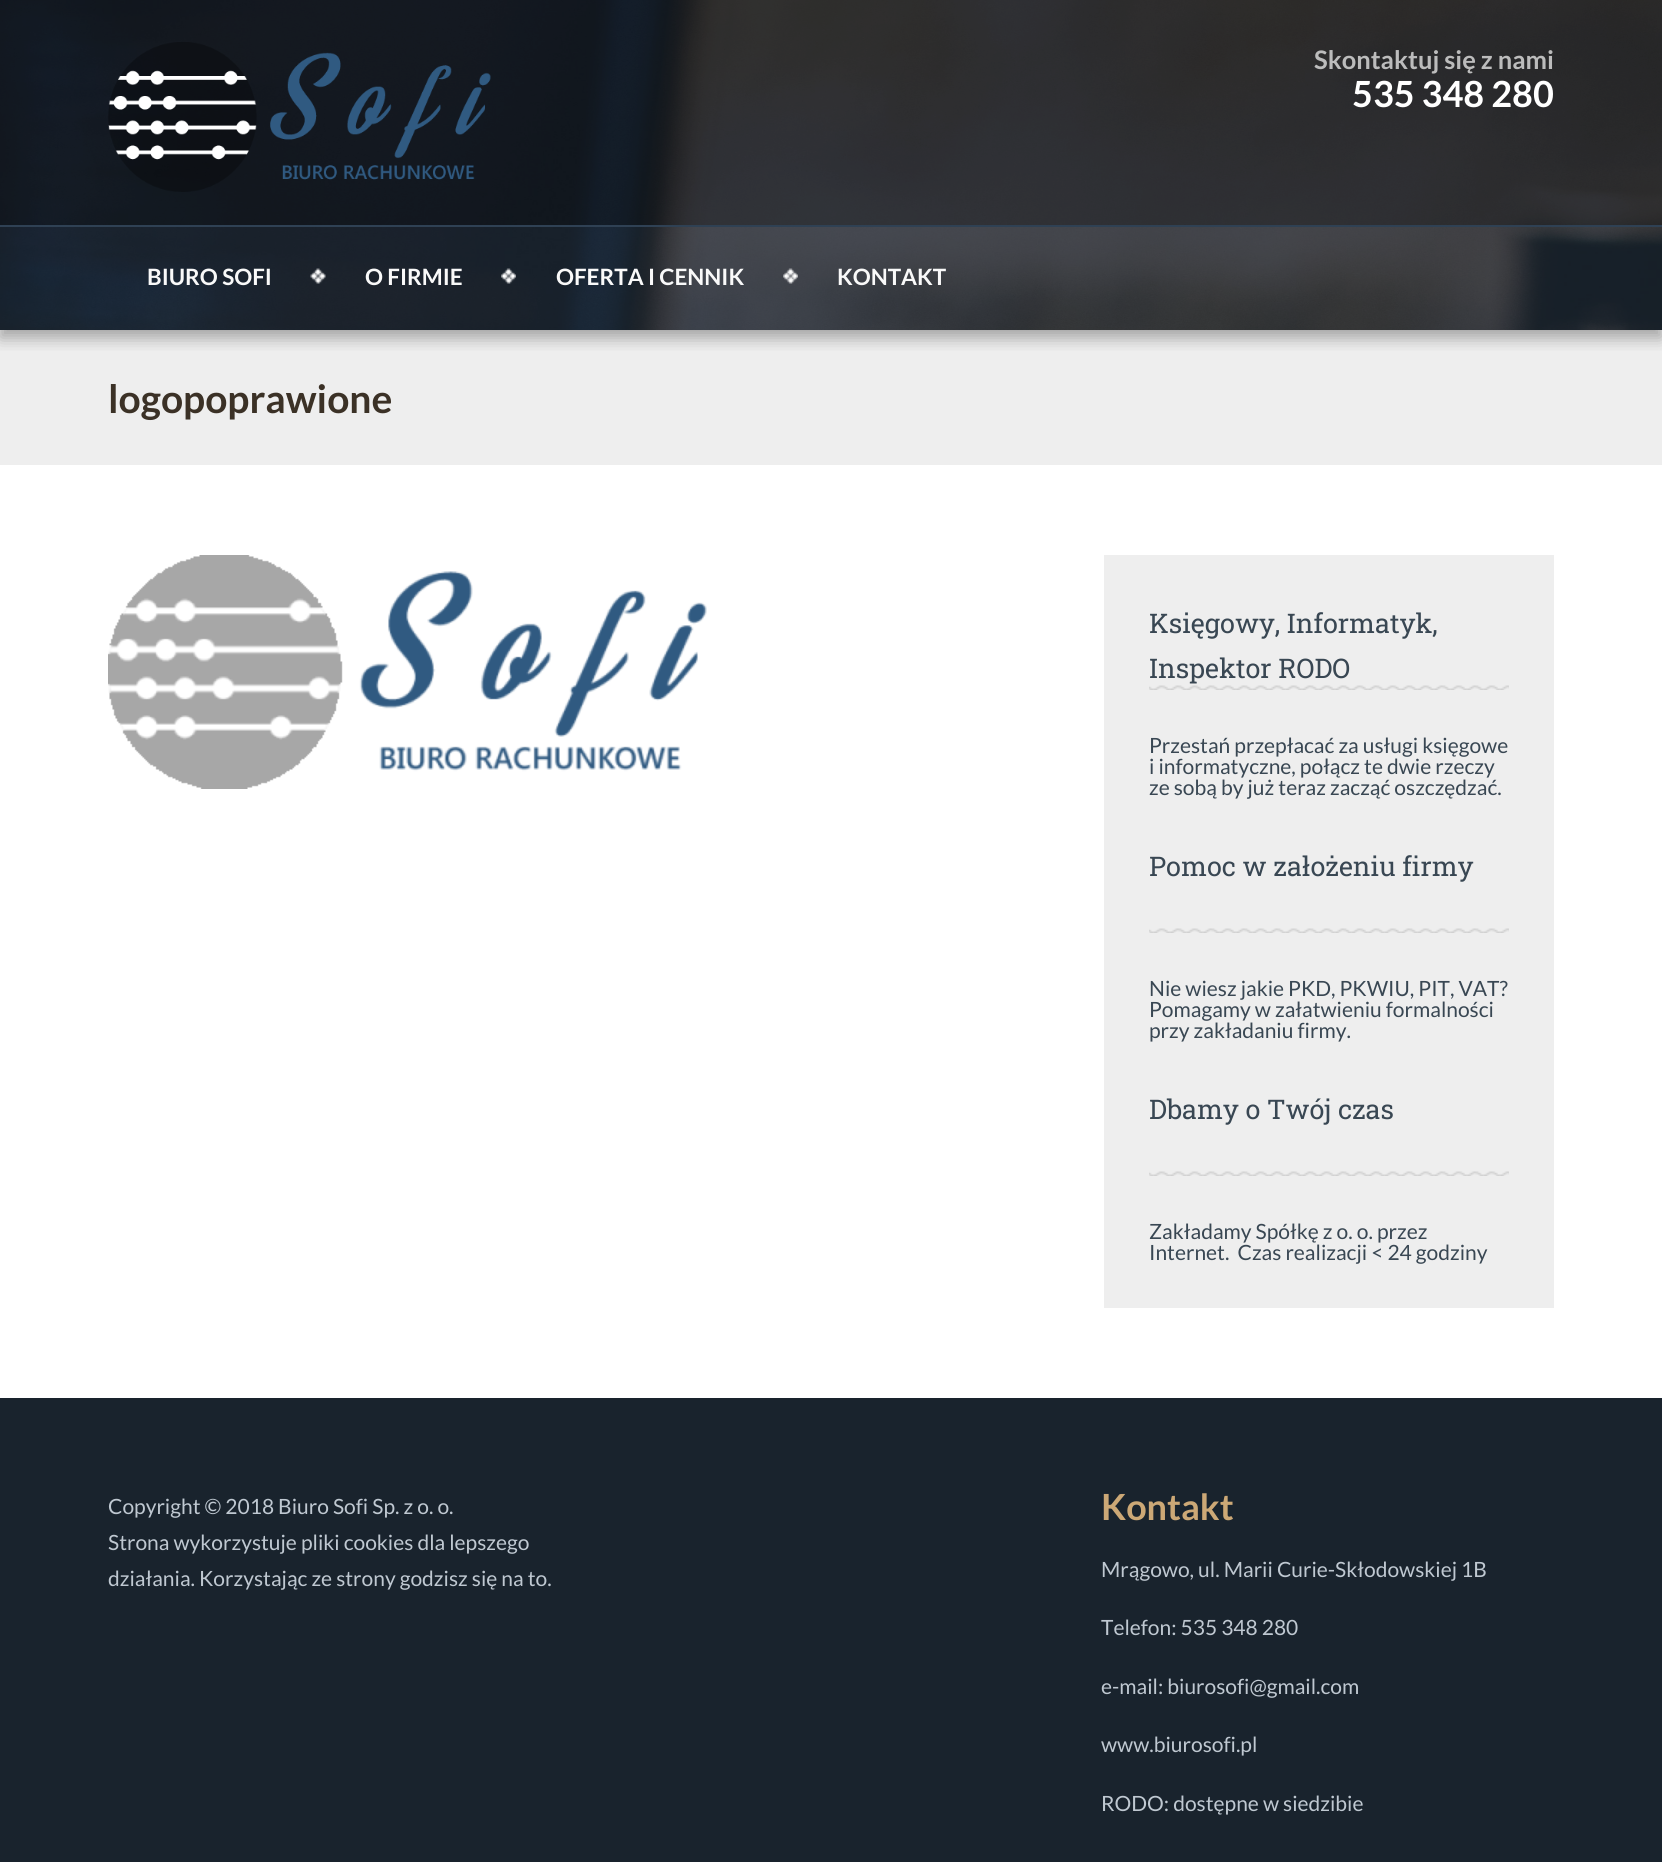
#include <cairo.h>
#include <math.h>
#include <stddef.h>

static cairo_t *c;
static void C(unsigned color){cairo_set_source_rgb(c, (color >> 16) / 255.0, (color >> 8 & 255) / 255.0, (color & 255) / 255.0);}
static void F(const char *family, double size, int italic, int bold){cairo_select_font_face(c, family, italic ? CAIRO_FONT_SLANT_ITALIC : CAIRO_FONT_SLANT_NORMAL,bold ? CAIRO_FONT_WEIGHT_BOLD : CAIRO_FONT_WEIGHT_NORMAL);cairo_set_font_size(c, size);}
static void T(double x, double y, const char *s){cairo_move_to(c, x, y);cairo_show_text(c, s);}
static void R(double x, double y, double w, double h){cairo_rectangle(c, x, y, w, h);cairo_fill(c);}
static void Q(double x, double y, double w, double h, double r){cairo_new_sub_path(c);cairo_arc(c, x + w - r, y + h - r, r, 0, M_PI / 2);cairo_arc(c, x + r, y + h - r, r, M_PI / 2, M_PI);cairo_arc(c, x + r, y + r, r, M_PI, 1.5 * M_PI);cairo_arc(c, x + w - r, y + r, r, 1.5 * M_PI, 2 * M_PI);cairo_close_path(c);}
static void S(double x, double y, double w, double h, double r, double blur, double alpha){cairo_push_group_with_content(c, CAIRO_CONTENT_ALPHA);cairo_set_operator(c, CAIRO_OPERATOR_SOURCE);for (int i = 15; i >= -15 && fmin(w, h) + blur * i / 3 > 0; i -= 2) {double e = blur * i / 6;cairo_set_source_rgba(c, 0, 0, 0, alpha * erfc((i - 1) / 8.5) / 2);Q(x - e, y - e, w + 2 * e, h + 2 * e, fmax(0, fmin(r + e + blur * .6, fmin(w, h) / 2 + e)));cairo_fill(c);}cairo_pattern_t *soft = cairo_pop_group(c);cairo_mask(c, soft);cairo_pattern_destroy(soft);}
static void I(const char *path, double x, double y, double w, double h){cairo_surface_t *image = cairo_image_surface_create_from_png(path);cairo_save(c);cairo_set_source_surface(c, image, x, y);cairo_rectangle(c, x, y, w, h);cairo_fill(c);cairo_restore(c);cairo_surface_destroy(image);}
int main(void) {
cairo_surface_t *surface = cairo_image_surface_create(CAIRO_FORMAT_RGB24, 1662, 1862);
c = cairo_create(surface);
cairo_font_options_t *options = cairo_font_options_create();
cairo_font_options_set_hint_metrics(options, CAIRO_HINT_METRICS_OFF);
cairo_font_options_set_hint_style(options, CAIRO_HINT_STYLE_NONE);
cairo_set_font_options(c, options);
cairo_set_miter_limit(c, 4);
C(0xffffff);
cairo_paint(c);
I("1.png",0,0,1662,330);
C(0xeeeeee);
R(0,330,1662,135);
cairo_save(c);
cairo_rectangle(c,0,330,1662,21);
cairo_clip(c);
C(0x323232);
S(0,8,1662,330,0,8,.4);
cairo_restore(c);
cairo_set_source_rgba(c,0.098,0.137,0.176,0.74);
R(0,0,1662,330);
cairo_set_source_rgba(c,0,0,0,0.3);
R(0,0,1662,225);
C(0x2f4154);
R(0,225,1662,2);
I("2.png",108,42,383,150);
F("Lato",25.5,0,1);
C(0xbcbcbc);
T(1314,69,"Skontaktuj się z nami");
F("Lato",36,0,1);
C(0xffffff);
T(1352,107,"535 348 280");
F("Lato",22.5,0,1);
C(0xf9f9f9);
T(147,285,"BIURO SOFI");
I("3.png",310,268,16,16);
T(365,285,"O FIRMIE");
I("4.png",501,268,15,16);
T(556,285,"OFERTA I CENNIK");
I("5.png",783,268,15,16);
T(837,285,"KONTAKT");
F("Lato",39,0,1);
C(0x3b3126);
T(108,413,"logopoprawione");
I("6.png",108,555,599,234);
C(0xeeeeee);
R(1104,555,450,753);
I("7.png",1149,685,360,5);
F("Roboto Slab",27,0,0);
C(0x394753);
T(1149,633,"Księgowy, Informatyk,");
T(1149,678,"Inspektor RODO");
F("Lato",21,0,0);
T(1149,753,"Przestań przepłacać za usługi księgowe");
T(1149,774,"i informatyczne, połącz te dwie rzeczy");
T(1149,795,"ze sobą by już teraz zacząć oszczędzać.");
I("8.png",1149,928,360,5);
F("Roboto Slab",27,0,0);
T(1149,876,"Pomoc w założeniu firmy");
F("Lato",21,0,0);
T(1149,996,"Nie wiesz jakie PKD, PKWIU, PIT, VAT?");
T(1149,1017,"Pomagamy w załatwieniu formalności");
T(1149,1038,"przy zakładaniu firmy.");
I("9.png",1149,1171,360,5);
F("Roboto Slab",27,0,0);
T(1149,1119,"Dbamy o Twój czas");
F("Lato",21,0,0);
T(1149,1239,"Zakładamy Spółkę z o. o. przez");
T(1149,1260,"Internet.  Czas realizacji < 24 godziny");
C(0x19232d);
R(0,1398,1662,464);
C(0xbfc8d1);
T(108,1514,"Copyright © 2018 Biuro Sofi Sp. z o. o.");
T(108,1550,"Strona wykorzystuje pliki cookies dla lepszego");
T(108,1586,"działania. Korzystając ze strony godzisz się na to.");
F("Lato",36,0,1);
C(0xcca876);
T(1101,1520,"Kontakt");
F("Lato",21,0,0);
C(0xbfc8d1);
T(1101,1577,"Mrągowo, ul. Marii Curie-Skłodowskiej 1B");
T(1101,1635,"Telefon: 535 348 280");
T(1101,1694,"e-mail: biurosofi@gmail.com");
T(1101,1752,"www.biurosofi.pl");
T(1101,1811,"RODO: dostępne w siedzibie");
cairo_surface_write_to_png(surface, "o.png");
cairo_font_options_destroy(options);
cairo_destroy(c);
cairo_surface_destroy(surface);
return 0;
}
